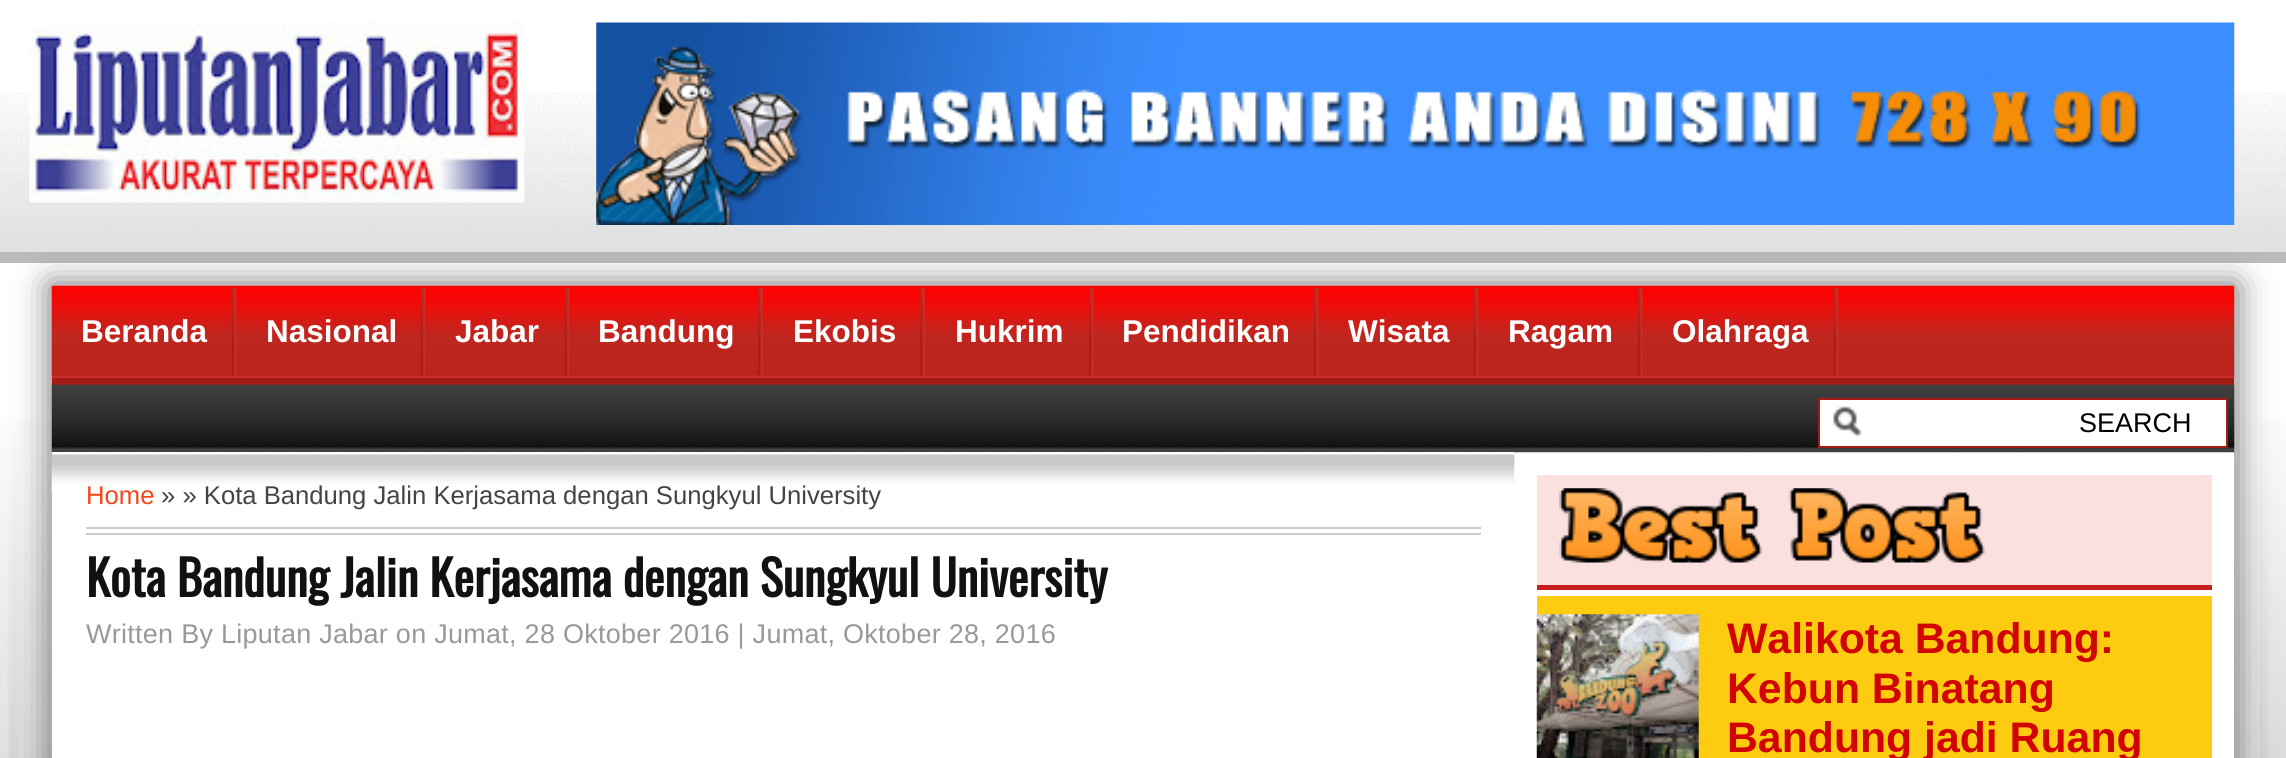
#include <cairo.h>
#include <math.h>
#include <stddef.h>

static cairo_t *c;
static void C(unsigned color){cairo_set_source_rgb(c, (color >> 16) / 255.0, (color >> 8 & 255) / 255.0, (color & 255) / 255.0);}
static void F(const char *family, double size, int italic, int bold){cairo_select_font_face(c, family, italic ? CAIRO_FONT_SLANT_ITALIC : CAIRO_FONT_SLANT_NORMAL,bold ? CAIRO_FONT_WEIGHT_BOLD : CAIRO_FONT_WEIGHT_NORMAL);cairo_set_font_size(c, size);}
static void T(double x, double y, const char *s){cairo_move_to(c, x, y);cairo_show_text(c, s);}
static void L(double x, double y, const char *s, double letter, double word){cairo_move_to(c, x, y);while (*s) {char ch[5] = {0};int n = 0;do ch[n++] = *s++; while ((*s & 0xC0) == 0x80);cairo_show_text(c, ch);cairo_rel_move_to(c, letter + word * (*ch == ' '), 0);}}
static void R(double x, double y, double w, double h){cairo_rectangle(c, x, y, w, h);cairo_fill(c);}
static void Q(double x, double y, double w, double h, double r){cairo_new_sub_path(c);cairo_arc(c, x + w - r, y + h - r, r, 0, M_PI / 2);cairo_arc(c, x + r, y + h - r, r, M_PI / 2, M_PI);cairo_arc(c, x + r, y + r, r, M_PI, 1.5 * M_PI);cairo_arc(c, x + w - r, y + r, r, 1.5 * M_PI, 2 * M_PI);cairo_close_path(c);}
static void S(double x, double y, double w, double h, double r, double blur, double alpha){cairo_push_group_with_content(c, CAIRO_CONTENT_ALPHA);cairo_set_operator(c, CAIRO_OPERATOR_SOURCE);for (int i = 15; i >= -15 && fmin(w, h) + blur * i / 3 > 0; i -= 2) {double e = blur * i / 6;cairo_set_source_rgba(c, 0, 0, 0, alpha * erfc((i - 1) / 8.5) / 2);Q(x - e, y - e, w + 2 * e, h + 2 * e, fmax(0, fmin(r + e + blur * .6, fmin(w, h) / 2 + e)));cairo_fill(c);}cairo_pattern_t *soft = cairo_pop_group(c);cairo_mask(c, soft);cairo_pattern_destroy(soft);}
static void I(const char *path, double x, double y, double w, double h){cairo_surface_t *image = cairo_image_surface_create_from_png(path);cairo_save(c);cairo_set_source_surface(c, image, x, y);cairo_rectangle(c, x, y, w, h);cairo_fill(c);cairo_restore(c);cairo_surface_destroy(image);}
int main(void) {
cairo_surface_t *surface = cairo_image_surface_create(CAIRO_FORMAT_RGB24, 2286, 758);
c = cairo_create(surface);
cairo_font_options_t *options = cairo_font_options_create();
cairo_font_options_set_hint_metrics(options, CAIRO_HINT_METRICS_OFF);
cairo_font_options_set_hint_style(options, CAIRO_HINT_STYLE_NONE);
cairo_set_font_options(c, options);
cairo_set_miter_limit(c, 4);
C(0xffffff);
cairo_paint(c);
I("1.png",0,263,2286,495);
I("2.png",0,92,2286,160);
C(0xbbbbbb);
R(0,252,2286,11);
I("3.png",29,22,496,181);
I("4.png",596,22,1639,203);
C(0x777777);
S(50,284,2187,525,0,17,1);
C(0xffffff);
R(1514,452,720,306);
I("5.png",51,285,2184,93);
C(0xa21b14);
R(52,378,2182,7);
I("6.png",231,288,6,88);
F("Liberation Sans",31.5,0,1);
C(0xffffff);
T(81,342,"Beranda");
I("6.png",420,288,6,88);
T(266,342,"Nasional");
I("6.png",564,288,6,88);
T(455,342,"Jabar");
I("7.png",758,288,5,88);
T(598,342,"Bandung");
I("7.png",920,288,5,88);
T(793,342,"Ekobis");
I("8.png",1089,288,5,88);
T(955,342,"Hukrim");
I("8.png",1314,288,5,88);
T(1122,342,"Pendidikan");
I("6.png",1473,288,6,88);
T(1348,342,"Wisata");
I("8.png",1638,288,5,88);
T(1508,342,"Ragam");
I("6.png",1833,288,6,88);
T(1672,342,"Olahraga");
I("10.png",51,384,2184,69);
R(1820,400,406,46);
I("9.png",1833,406,29,31);
cairo_rectangle(c,1819,399,408,48);
C(0xa21b14);
cairo_stroke(c);
F("Liberation Sans",27,0,0);
C(0x000000);
T(2079,432,"SEARCH");
C(0xffffff);
R(52,452,1462,306);
I("11.png",51,454,1464,39);
C(0xcccccc);
R(86,527,1395,2);
R(86,533,1395,2);
F("Liberation Sans",25.65,0,0);
C(0xf7441a);
T(86,504,"Home");
C(0x444444);
T(161,504,"» » Kota Bandung Jalin Kerjasama dengan Sungkyul University");
F("Oswald",48.6,0,1);
C(0x111111);
T(86,597,"Kota Bandung Jalin Kerjasama dengan Sungkyul University");
F("Liberation Sans",27,0,0);
C(0x999999);
L(86,643,"Written By Liputan Jabar on Jumat, 28 Oktober 2016 | Jumat, Oktober 28, 2016",.27,0);
C(0xfbe0e0);
R(1537,475,675,110);
C(0xc91e1e);
R(1537,585,675,5);
I("12.png",1559,488,426,75);
C(0xfdcc10);
R(1537,596,675,162);
I("13.png",1536,614,163,144);
F("Liberation Sans",42.75,0,1);
C(0xd10303);
T(1727,653,"Walikota Bandung:");
T(1727,703,"Kebun Binatang");
T(1727,752,"Bandung jadi Ruang");
cairo_surface_write_to_png(surface, "o.png");
cairo_font_options_destroy(options);
cairo_destroy(c);
cairo_surface_destroy(surface);
return 0;
}
